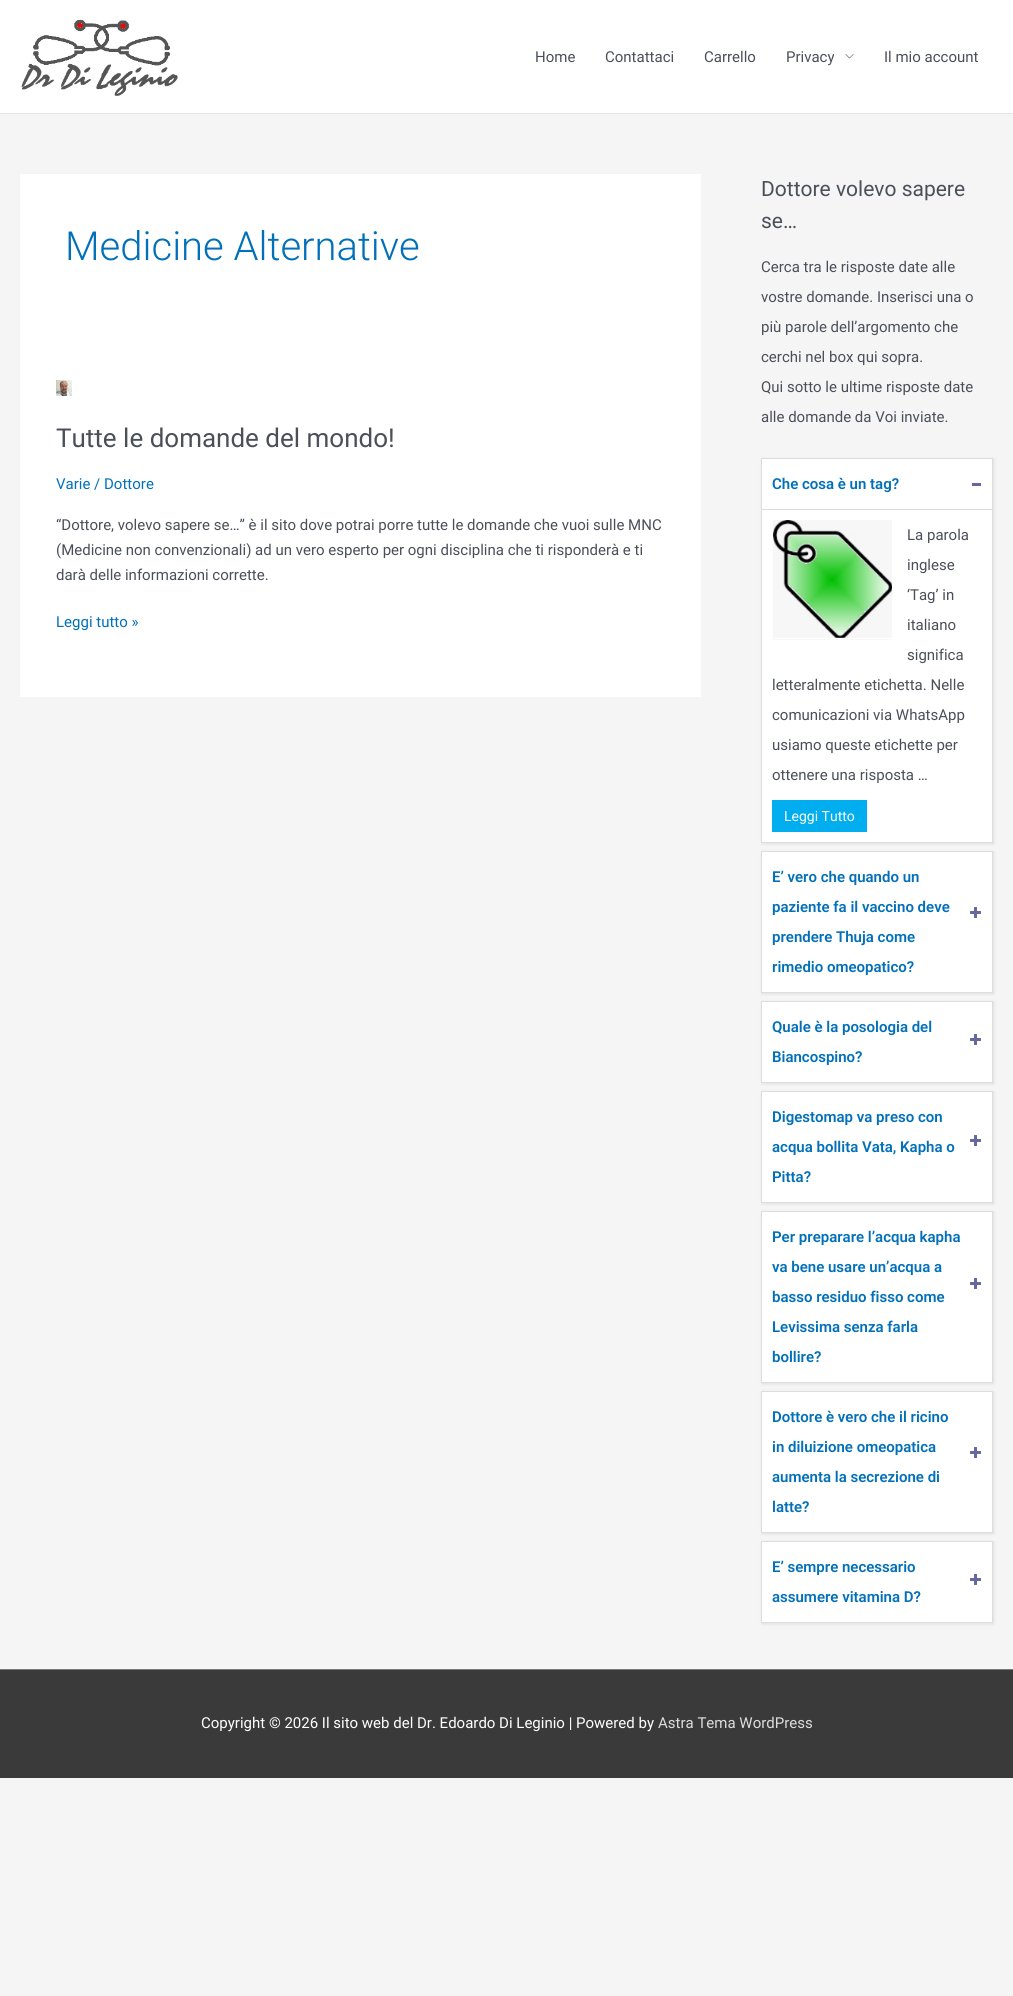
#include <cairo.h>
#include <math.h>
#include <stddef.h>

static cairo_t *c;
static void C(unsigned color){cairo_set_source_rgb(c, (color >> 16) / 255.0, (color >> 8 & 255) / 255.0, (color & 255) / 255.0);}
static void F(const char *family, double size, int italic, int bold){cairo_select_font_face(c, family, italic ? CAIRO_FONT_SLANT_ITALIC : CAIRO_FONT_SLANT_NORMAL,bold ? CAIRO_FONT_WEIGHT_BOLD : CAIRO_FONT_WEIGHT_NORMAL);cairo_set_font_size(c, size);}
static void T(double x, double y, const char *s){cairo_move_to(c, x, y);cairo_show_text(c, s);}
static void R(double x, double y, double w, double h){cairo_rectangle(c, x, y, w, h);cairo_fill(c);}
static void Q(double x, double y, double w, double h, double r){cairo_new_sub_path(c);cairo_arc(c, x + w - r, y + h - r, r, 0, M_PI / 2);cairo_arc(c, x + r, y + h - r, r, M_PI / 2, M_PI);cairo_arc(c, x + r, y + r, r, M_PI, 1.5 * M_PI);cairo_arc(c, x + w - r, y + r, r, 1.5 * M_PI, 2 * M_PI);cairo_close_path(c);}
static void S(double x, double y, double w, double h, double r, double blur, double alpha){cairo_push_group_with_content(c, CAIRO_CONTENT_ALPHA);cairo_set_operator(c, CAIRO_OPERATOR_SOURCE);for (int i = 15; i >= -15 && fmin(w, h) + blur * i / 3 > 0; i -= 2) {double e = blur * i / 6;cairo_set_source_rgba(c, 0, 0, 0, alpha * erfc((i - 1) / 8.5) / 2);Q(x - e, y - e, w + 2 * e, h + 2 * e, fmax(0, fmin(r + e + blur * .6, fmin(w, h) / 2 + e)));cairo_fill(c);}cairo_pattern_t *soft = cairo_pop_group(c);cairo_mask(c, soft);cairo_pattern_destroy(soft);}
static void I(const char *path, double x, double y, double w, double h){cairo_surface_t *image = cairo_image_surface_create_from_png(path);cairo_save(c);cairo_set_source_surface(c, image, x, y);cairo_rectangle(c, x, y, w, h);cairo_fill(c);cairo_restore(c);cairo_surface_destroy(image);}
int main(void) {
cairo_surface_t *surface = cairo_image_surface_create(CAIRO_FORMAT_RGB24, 1013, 1996);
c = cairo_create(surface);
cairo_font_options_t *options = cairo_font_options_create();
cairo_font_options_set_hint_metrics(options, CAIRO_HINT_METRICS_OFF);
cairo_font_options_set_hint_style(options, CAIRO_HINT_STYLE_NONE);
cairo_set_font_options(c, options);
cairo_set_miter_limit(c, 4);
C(0xf5f5f5);
cairo_paint(c);
C(0xffffff);
R(0,0,1013,113);
C(0xe4e4e4);
R(0,113,1013,1);
I("1.png",21,19,157,77);
F("Roboto",15,0,0);
C(0x4b4f58);
T(535,62,"Home");
T(605,62,"Contattaci");
T(704,62,"Carrello");
T(786,62,"Privacy");
I("2.png",845,54,9,5);
T(884,62,"Il mio account");
C(0xffffff);
R(20,174,681,523);
F("Roboto Light",40,0,0);
C(0x0170b9);
T(65,260,"Medicine Alternative");
I("3.png",56,380,16,16);
F("Roboto",26,0,0);
C(0x4b4f58);
T(56,447,"Tutte le domande del mondo!");
F("Roboto",15,0,0);
C(0x0170b9);
T(56,489,"Varie / Dottore");
C(0x4b4f58);
T(56,530,"“Dottore, volevo sapere se…” è il sito dove potrai porre tutte le domande che vuoi sulle MNC");
T(56,555,"(Medicine non convenzionali) ad un vero esperto per ogni disciplina che ti risponderà e ti");
T(56,580,"darà delle informazioni corrette.");
C(0x0170b9);
T(56,627,"Leggi tutto »");
F("Roboto",21,0,0);
C(0x4b4f58);
T(761,196,"Dottore volevo sapere");
T(761,228,"se…");
F("Roboto",15,0,0);
T(761,272,"Cerca tra le risposte date alle");
T(761,302,"vostre domande. Inserisci una o");
T(761,332,"più parole dell’argomento che");
T(761,362,"cerchi nel box qui sopra.");
T(761,392,"Qui sotto le ultime risposte date");
T(761,422,"alle domande da Voi inviate.");
C(0xb0b2b5);
S(762,459,232,385,0,1.5,.34);
C(0xffffff);
cairo_rectangle(c,761.5,458.5,231,384);
cairo_fill_preserve(c);
C(0xdddddd);
cairo_set_line_width(c,1);
cairo_stroke(c);
F("Roboto SemiBold",15,0,0);
C(0x0170b9);
T(772,489,"Che cosa è un tag?");
C(0x66679f);
R(972,483,9,3);
C(0xdddddd);
R(762,509,230,1);
I("4.png",772,520,120,120);
F("Roboto",15,0,0);
C(0x4b4f58);
T(907,540,"La parola");
T(907,570,"inglese");
T(907,600,"‘Tag’ in");
T(907,630,"italiano");
T(907,660,"significa");
T(772,690,"letteralmente etichetta. Nelle");
T(772,720,"comunicazioni via WhatsApp");
T(772,750,"usiamo queste etichette per");
T(772,780,"ottenere una risposta …");
C(0x00aeef);
R(772,800,95,32);
F("Roboto",14,0,0);
C(0xffffff);
T(784,821,"Leggi Tutto");
C(0xb0b2b5);
S(762,852,232,142,0,1.5,.34);
C(0xffffff);
cairo_rectangle(c,761.5,851.5,231,141);
cairo_fill_preserve(c);
C(0xdddddd);
cairo_stroke(c);
F("Roboto SemiBold",15,0,0);
C(0x0170b9);
T(772,882,"E’ vero che quando un");
T(772,912,"paziente fa il vaccino deve");
T(772,942,"prendere Thuja come");
T(772,972,"rimedio omeopatico?");
I("5.png",970,907,11,11);
C(0xb0b2b5);
S(762,1002,232,82,0,1.5,.34);
C(0xffffff);
cairo_rectangle(c,761.5,1001.5,231,81);
cairo_fill_preserve(c);
C(0xdddddd);
cairo_stroke(c);
C(0x0170b9);
T(772,1032,"Quale è la posologia del");
T(772,1062,"Biancospino?");
I("5.png",970,1034,11,11);
C(0xb0b2b5);
S(762,1092,232,112,0,1.5,.34);
C(0xffffff);
cairo_rectangle(c,761.5,1091.5,231,111);
cairo_fill_preserve(c);
C(0xdddddd);
cairo_stroke(c);
C(0x0170b9);
T(772,1122,"Digestomap va preso con");
T(772,1152,"acqua bollita Vata, Kapha o");
T(772,1182,"Pitta?");
I("5.png",970,1135,11,11);
C(0xb0b2b5);
S(762,1212,232,172,0,1.5,.34);
C(0xffffff);
cairo_rectangle(c,761.5,1211.5,231,171);
cairo_fill_preserve(c);
C(0xdddddd);
cairo_stroke(c);
C(0x0170b9);
T(772,1242,"Per preparare l’acqua kapha");
T(772,1272,"va bene usare un’acqua a");
T(772,1302,"basso residuo fisso come");
T(772,1332,"Levissima senza farla");
T(772,1362,"bollire?");
I("5.png",970,1278,11,11);
C(0xb0b2b5);
S(762,1392,232,142,0,1.5,.34);
C(0xffffff);
cairo_rectangle(c,761.5,1391.5,231,141);
cairo_fill_preserve(c);
C(0xdddddd);
cairo_stroke(c);
C(0x0170b9);
T(772,1422,"Dottore è vero che il ricino");
T(772,1452,"in diluizione omeopatica");
T(772,1482,"aumenta la secrezione di");
T(772,1512,"latte?");
I("5.png",970,1447,11,11);
C(0xb0b2b5);
S(762,1542,232,82,0,1.5,.34);
C(0xffffff);
cairo_rectangle(c,761.5,1541.5,231,81);
cairo_fill_preserve(c);
C(0xdddddd);
cairo_stroke(c);
C(0x0170b9);
T(772,1572,"E’ sempre necessario");
T(772,1602,"assumere vitamina D?");
I("5.png",970,1574,11,11);
C(0x7a7a7a);
R(0,1669,1013,1);
C(0x3a3a3a);
R(0,1670,1013,108);
F("Roboto",15,0,0);
C(0xffffff);
T(201,1728,"Copyright © 2026 Il sito web del Dr. Edoardo Di Leginio | Powered by");
C(0xdddddd);
T(658,1728,"Astra Tema WordPress");
cairo_surface_write_to_png(surface, "o.png");
cairo_font_options_destroy(options);
cairo_destroy(c);
cairo_surface_destroy(surface);
return 0;
}
